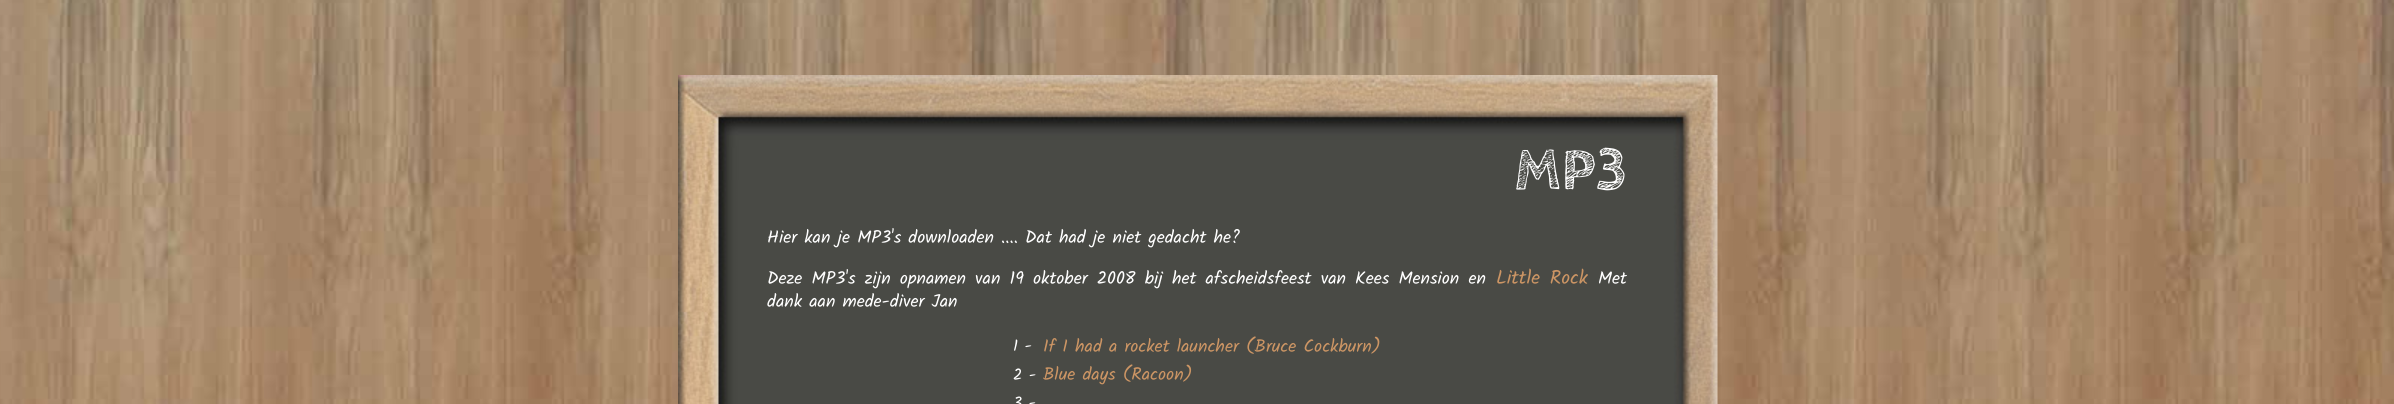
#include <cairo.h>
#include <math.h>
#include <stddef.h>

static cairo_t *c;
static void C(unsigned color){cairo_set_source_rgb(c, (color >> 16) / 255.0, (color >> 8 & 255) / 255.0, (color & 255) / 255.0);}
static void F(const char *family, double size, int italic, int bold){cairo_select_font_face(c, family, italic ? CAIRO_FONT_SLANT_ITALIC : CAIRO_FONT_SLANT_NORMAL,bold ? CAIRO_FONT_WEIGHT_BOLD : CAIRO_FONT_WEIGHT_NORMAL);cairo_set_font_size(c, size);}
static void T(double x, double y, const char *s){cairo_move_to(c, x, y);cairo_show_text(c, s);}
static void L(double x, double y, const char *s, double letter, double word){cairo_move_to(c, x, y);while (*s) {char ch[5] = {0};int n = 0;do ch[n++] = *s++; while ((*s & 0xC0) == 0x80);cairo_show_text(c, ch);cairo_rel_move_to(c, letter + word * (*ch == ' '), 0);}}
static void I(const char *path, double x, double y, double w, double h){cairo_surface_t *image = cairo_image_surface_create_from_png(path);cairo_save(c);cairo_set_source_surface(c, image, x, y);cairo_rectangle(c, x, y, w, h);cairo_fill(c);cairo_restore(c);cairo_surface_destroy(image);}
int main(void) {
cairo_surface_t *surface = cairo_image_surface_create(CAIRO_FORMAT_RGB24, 2394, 404);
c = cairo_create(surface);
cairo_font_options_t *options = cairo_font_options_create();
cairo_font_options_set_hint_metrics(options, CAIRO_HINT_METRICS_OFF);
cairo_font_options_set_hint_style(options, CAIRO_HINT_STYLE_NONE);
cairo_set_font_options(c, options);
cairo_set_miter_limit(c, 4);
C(0xffffff);
cairo_paint(c);
I("1.png",0,0,2394,404);
I("2.png",678,75,1040,105);
I("3.png",678,180,1040,224);
F("Cabin Sketch",60,0,1);
C(0xffffff);
T(1514,189,"MP3");
F("Kalam",17.8,0,0);
T(767,243,"Hier kan je MP3's downloaden .... Dat had je niet gedacht he?");
L(767,284,"Deze MP3's zijn opnamen van 19 oktober 2008 bij het afscheidsfeest van Kees Mension en",0,2);
F("Kalam",19.5,0,0);
C(0xcc9564);
L(1496,284,"Little Rock",0,2);
F("Kalam",17.8,0,0);
C(0xffffff);
T(1598,284,"Met");
T(767,307,"dank aan mede-diver Jan");
F("Kalam",16,0,0);
T(1013,351,"1 -");
F("Kalam",17.8,0,0);
C(0xcc9564);
T(1043,352,"If I had a rocket launcher (Bruce Cockburn)");
F("Kalam",16,0,0);
C(0xffffff);
T(1013,380,"2 -");
F("Kalam",17.8,0,0);
C(0xcc9564);
T(1043,380,"Blue days (Racoon)");
F("Kalam",16,0,0);
C(0xffffff);
T(1013,408,"3 -");
cairo_surface_write_to_png(surface, "o.png");
cairo_font_options_destroy(options);
cairo_destroy(c);
cairo_surface_destroy(surface);
return 0;
}
